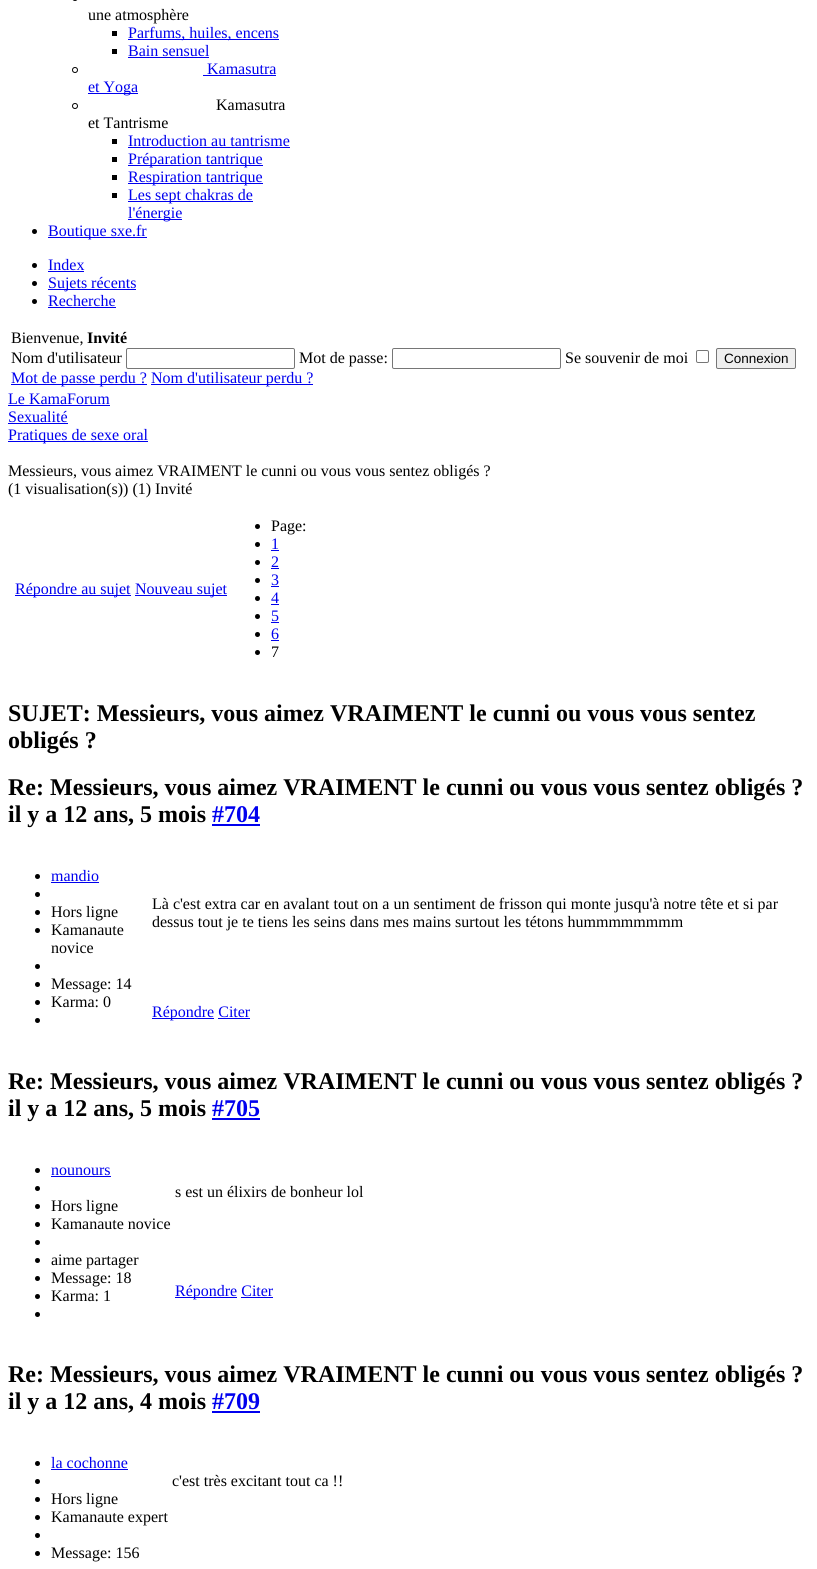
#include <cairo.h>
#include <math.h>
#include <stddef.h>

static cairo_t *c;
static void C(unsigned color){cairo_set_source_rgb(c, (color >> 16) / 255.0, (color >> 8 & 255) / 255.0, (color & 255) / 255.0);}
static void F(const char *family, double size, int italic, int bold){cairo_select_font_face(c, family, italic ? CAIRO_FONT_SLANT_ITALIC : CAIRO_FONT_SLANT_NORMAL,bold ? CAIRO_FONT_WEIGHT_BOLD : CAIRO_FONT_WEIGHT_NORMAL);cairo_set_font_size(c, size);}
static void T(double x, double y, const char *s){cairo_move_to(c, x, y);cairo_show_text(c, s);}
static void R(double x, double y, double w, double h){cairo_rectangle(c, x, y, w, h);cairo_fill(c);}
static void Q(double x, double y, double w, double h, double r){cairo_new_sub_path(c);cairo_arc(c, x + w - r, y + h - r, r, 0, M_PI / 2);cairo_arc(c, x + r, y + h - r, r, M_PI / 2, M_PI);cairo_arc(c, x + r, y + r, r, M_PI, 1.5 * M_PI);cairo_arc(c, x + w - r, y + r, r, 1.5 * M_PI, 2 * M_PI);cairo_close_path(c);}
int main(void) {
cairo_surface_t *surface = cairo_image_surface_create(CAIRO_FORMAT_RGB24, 817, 1569);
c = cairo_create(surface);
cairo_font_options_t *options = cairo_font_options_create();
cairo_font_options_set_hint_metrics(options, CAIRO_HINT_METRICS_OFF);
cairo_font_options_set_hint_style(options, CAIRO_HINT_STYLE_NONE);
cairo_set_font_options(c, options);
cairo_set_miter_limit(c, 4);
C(0xffffff);
cairo_paint(c);
Q(72.5,-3.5,5,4,2.5);
C(0x000000);
cairo_set_line_width(c,1);
cairo_stroke(c);
F("Liberation Serif",16,0,0);
T(88,20,"une atmosphère");
R(112,31,5,5);
C(0x0000ee);
R(128,39,151,1);
T(128,38,"Parfums, huiles, encens");
C(0x000000);
R(112,49,5,5);
C(0x0000ee);
T(128,56,"Bain sensuel");
R(128,57,81,1);
cairo_new_path(c);
cairo_arc(c,75,70,2.5,0,2 * M_PI);
C(0x000000);
cairo_stroke(c);
C(0x0000ee);
T(207,74,"Kamasutra");
R(203,75,73,1);
R(88,93,50,1);
T(88,92,"et Yoga");
cairo_new_path(c);
cairo_arc(c,75,106,2.5,0,2 * M_PI);
C(0x000000);
cairo_stroke(c);
T(216,110,"Kamasutra");
T(88,128,"et Tantrisme");
R(112,139,5,5);
C(0x0000ee);
T(128,146,"Introduction au tantrisme");
R(128,147,162,1);
C(0x000000);
R(112,157,5,5);
C(0x0000ee);
R(128,165,135,1);
T(128,164,"Préparation tantrique");
C(0x000000);
R(112,175,5,5);
C(0x0000ee);
R(128,183,135,1);
T(128,182,"Respiration tantrique");
C(0x000000);
R(112,193,5,5);
C(0x0000ee);
R(128,201,125,1);
T(128,200,"Les sept chakras de");
R(128,219,54,1);
T(128,218,"l'énergie");
C(0x000000);
cairo_new_path(c);
cairo_arc(c,34.5,231.5,2.5,0,2 * M_PI);
cairo_fill(c);
C(0x0000ee);
R(48,237,99,1);
T(48,236,"Boutique sxe.fr");
C(0x000000);
cairo_new_path(c);
cairo_arc(c,34.5,265.5,2.5,0,2 * M_PI);
cairo_fill(c);
C(0x0000ee);
T(48,270,"Index");
R(48,271,36,1);
C(0x000000);
cairo_new_path(c);
cairo_arc(c,34.5,283.5,2.5,0,2 * M_PI);
cairo_fill(c);
C(0x0000ee);
R(48,289,88,1);
T(48,288,"Sujets récents");
C(0x000000);
cairo_new_path(c);
cairo_arc(c,34.5,301.5,2.5,0,2 * M_PI);
cairo_fill(c);
C(0x0000ee);
T(48,306,"Recherche");
R(48,307,68,1);
C(0x000000);
T(11,343,"Bienvenue,");
F("Liberation Serif",16,0,1);
T(87,343,"Invité");
F("Liberation Serif",16,0,0);
T(11,363,"Nom d'utilisateur");
Q(126.5,348.5,168,20,1.5);
C(0x767676);
cairo_stroke(c);
C(0x000000);
T(299,363,"Mot de passe:");
Q(392.5,348.5,168,20,1.5);
C(0x767676);
cairo_stroke(c);
C(0x000000);
T(565,363,"Se souvenir de moi");
Q(696.5,350.5,12,12,1.5);
C(0x767676);
cairo_stroke(c);
C(0xefefef);
Q(716.5,348.5,79,20,1.5);
cairo_fill_preserve(c);
C(0x767676);
cairo_stroke(c);
F("Liberation Sans",13.5,0,0);
C(0x000000);
T(724,363,"Connexion");
C(0x0000ee);
R(11,384,136,1);
F("Liberation Serif",16,0,0);
T(11,383,"Mot de passe perdu ?");
R(151,384,162,1);
T(151,383,"Nom d'utilisateur perdu ?");
T(8,404,"Le KamaForum");
R(8,405,102,1);
T(8,422,"Sexualité");
R(8,423,60,1);
R(8,441,140,1);
T(8,440,"Pratiques de sexe oral");
C(0x000000);
T(8,476,"Messieurs, vous aimez VRAIMENT le cunni ou vous vous sentez obligés ?");
T(8,494,"(1 visualisation(s)) (1) Invité");
C(0x0000ee);
R(15,595,116,1);
T(15,594,"Répondre au sujet");
R(135,595,92,1);
T(135,594,"Nouveau sujet");
C(0x000000);
cairo_new_path(c);
cairo_arc(c,257.5,526.5,2.5,0,2 * M_PI);
cairo_fill(c);
T(271,531,"Page:");
cairo_new_path(c);
cairo_arc(c,257.5,544.5,2.5,0,2 * M_PI);
cairo_fill(c);
C(0x0000ee);
T(271,549,"1");
R(271,550,8,1);
C(0x000000);
cairo_new_path(c);
cairo_arc(c,257.5,562.5,2.5,0,2 * M_PI);
cairo_fill(c);
C(0x0000ee);
T(271,567,"2");
R(271,568,8,1);
C(0x000000);
cairo_new_path(c);
cairo_arc(c,257.5,580.5,2.5,0,2 * M_PI);
cairo_fill(c);
C(0x0000ee);
T(271,585,"3");
R(271,586,8,1);
C(0x000000);
cairo_new_path(c);
cairo_arc(c,257.5,598.5,2.5,0,2 * M_PI);
cairo_fill(c);
C(0x0000ee);
T(271,603,"4");
R(271,604,8,1);
C(0x000000);
cairo_new_path(c);
cairo_arc(c,257.5,616.5,2.5,0,2 * M_PI);
cairo_fill(c);
C(0x0000ee);
T(271,621,"5");
R(271,622,8,1);
C(0x000000);
cairo_new_path(c);
cairo_arc(c,257.5,634.5,2.5,0,2 * M_PI);
cairo_fill(c);
C(0x0000ee);
T(271,639,"6");
R(271,640,8,1);
C(0x000000);
cairo_new_path(c);
cairo_arc(c,257.5,652.5,2.5,0,2 * M_PI);
cairo_fill(c);
T(271,657,"7");
F("Liberation Serif",24,0,1);
T(8,721,"SUJET: Messieurs, vous aimez VRAIMENT le cunni ou vous vous sentez");
T(8,748,"obligés ?");
T(8,795,"Re: Messieurs, vous aimez VRAIMENT le cunni ou vous vous sentez obligés ?");
T(8,822,"il y a 12 ans, 5 mois");
C(0x0000ee);
T(212,822,"#704");
R(212,824,48,2);
C(0x000000);
cairo_new_path(c);
cairo_arc(c,37.5,876.5,2.5,0,2 * M_PI);
cairo_fill(c);
F("Liberation Serif",16,0,0);
C(0x0000ee);
T(51,881,"mandio");
R(51,882,48,1);
C(0x000000);
cairo_new_path(c);
cairo_arc(c,37.5,894.5,2.5,0,2 * M_PI);
cairo_fill(c);
cairo_arc(c,37.5,912.5,2.5,0,2 * M_PI);
cairo_fill(c);
T(51,917,"Hors ligne");
cairo_new_path(c);
cairo_arc(c,37.5,930.5,2.5,0,2 * M_PI);
cairo_fill(c);
T(51,935,"Kamanaute");
T(51,953,"novice");
cairo_new_path(c);
cairo_arc(c,37.5,966.5,2.5,0,2 * M_PI);
cairo_fill(c);
cairo_arc(c,37.5,984.5,2.5,0,2 * M_PI);
cairo_fill(c);
T(51,989,"Message: 14");
cairo_new_path(c);
cairo_arc(c,37.5,1002.5,2.5,0,2 * M_PI);
cairo_fill(c);
T(51,1007,"Karma: 0");
cairo_new_path(c);
cairo_arc(c,37.5,1020.5,2.5,0,2 * M_PI);
cairo_fill(c);
T(152,909,"Là c'est extra car en avalant tout on a un sentiment de frisson qui monte jusqu'à notre tête et si par");
T(152,927,"dessus tout je te tiens les seins dans mes mains surtout les tétons hummmmmmmm");
C(0x0000ee);
R(152,1018,62,1);
T(152,1017,"Répondre Citer");
R(218,1018,32,1);
F("Liberation Serif",24,0,1);
C(0x000000);
T(8,1089,"Re: Messieurs, vous aimez VRAIMENT le cunni ou vous vous sentez obligés ?");
T(8,1116,"il y a 12 ans, 5 mois");
C(0x0000ee);
T(212,1116,"#705");
R(212,1118,48,2);
C(0x000000);
cairo_new_path(c);
cairo_arc(c,37.5,1170.5,2.5,0,2 * M_PI);
cairo_fill(c);
F("Liberation Serif",16,0,0);
C(0x0000ee);
T(51,1175,"nounours");
R(51,1176,60,1);
C(0x000000);
cairo_new_path(c);
cairo_arc(c,37.5,1188.5,2.5,0,2 * M_PI);
cairo_fill(c);
cairo_arc(c,37.5,1206.5,2.5,0,2 * M_PI);
cairo_fill(c);
T(51,1211,"Hors ligne");
cairo_new_path(c);
cairo_arc(c,37.5,1224.5,2.5,0,2 * M_PI);
cairo_fill(c);
T(51,1229,"Kamanaute novice");
cairo_new_path(c);
cairo_arc(c,37.5,1242.5,2.5,0,2 * M_PI);
cairo_fill(c);
cairo_arc(c,37.5,1260.5,2.5,0,2 * M_PI);
cairo_fill(c);
T(51,1265,"aime partager");
cairo_new_path(c);
cairo_arc(c,37.5,1278.5,2.5,0,2 * M_PI);
cairo_fill(c);
T(51,1283,"Message: 18");
cairo_new_path(c);
cairo_arc(c,37.5,1296.5,2.5,0,2 * M_PI);
cairo_fill(c);
T(51,1301,"Karma: 1");
cairo_new_path(c);
cairo_arc(c,37.5,1314.5,2.5,0,2 * M_PI);
cairo_fill(c);
T(175,1197,"s est un élixirs de bonheur lol");
C(0x0000ee);
R(175,1297,62,1);
T(175,1296,"Répondre Citer");
R(241,1297,32,1);
F("Liberation Serif",24,0,1);
C(0x000000);
T(8,1382,"Re: Messieurs, vous aimez VRAIMENT le cunni ou vous vous sentez obligés ?");
T(8,1409,"il y a 12 ans, 4 mois");
C(0x0000ee);
T(212,1409,"#709");
R(212,1411,48,2);
C(0x000000);
cairo_new_path(c);
cairo_arc(c,37.5,1463.5,2.5,0,2 * M_PI);
cairo_fill(c);
F("Liberation Serif",16,0,0);
C(0x0000ee);
T(51,1468,"la cochonne");
R(51,1469,77,1);
C(0x000000);
cairo_new_path(c);
cairo_arc(c,37.5,1481.5,2.5,0,2 * M_PI);
cairo_fill(c);
cairo_arc(c,37.5,1499.5,2.5,0,2 * M_PI);
cairo_fill(c);
T(51,1504,"Hors ligne");
cairo_new_path(c);
cairo_arc(c,37.5,1517.5,2.5,0,2 * M_PI);
cairo_fill(c);
T(51,1522,"Kamanaute expert");
cairo_new_path(c);
cairo_arc(c,37.5,1535.5,2.5,0,2 * M_PI);
cairo_fill(c);
cairo_arc(c,37.5,1553.5,2.5,0,2 * M_PI);
cairo_fill(c);
T(51,1558,"Message: 156");
T(172,1486,"c'est très excitant tout ca !!");
cairo_surface_write_to_png(surface, "o.png");
cairo_font_options_destroy(options);
cairo_destroy(c);
cairo_surface_destroy(surface);
return 0;
}
